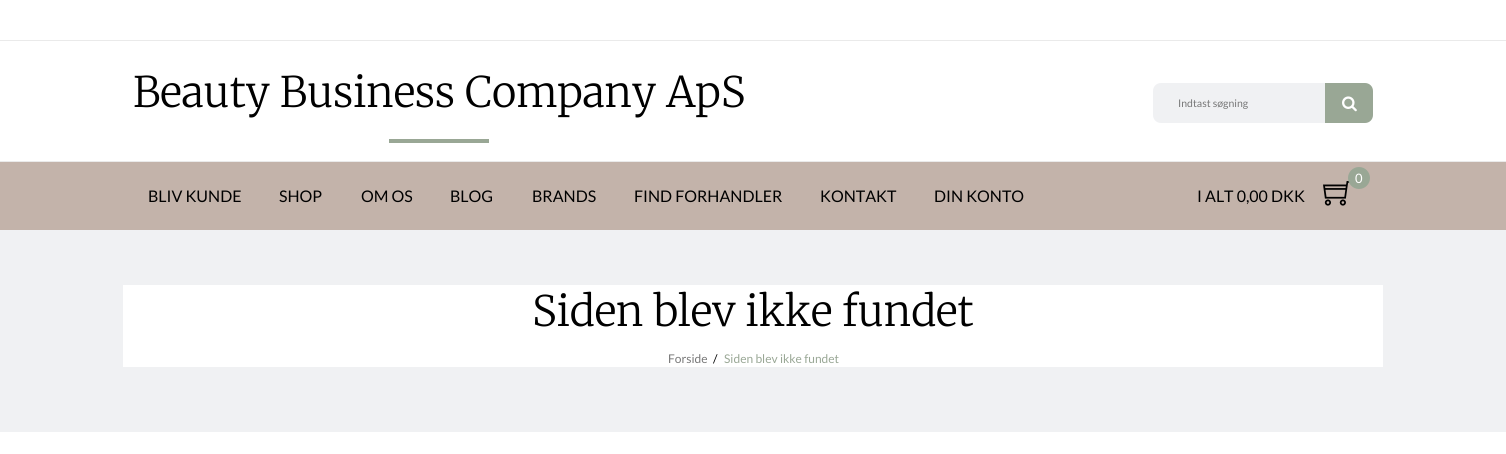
#include <cairo.h>
#include <math.h>
#include <stddef.h>

static cairo_t *c;
static void C(unsigned color){cairo_set_source_rgb(c, (color >> 16) / 255.0, (color >> 8 & 255) / 255.0, (color & 255) / 255.0);}
static void F(const char *family, double size, int italic, int bold){cairo_select_font_face(c, family, italic ? CAIRO_FONT_SLANT_ITALIC : CAIRO_FONT_SLANT_NORMAL,bold ? CAIRO_FONT_WEIGHT_BOLD : CAIRO_FONT_WEIGHT_NORMAL);cairo_set_font_size(c, size);}
static void T(double x, double y, const char *s){cairo_move_to(c, x, y);cairo_show_text(c, s);}
static void R(double x, double y, double w, double h){cairo_rectangle(c, x, y, w, h);cairo_fill(c);}
static void I(const char *path, double x, double y, double w, double h){cairo_surface_t *image = cairo_image_surface_create_from_png(path);cairo_save(c);cairo_set_source_surface(c, image, x, y);cairo_rectangle(c, x, y, w, h);cairo_fill(c);cairo_restore(c);cairo_surface_destroy(image);}
int main(void) {
cairo_surface_t *surface = cairo_image_surface_create(CAIRO_FORMAT_RGB24, 1506, 454);
c = cairo_create(surface);
cairo_font_options_t *options = cairo_font_options_create();
cairo_font_options_set_hint_metrics(options, CAIRO_HINT_METRICS_OFF);
cairo_font_options_set_hint_style(options, CAIRO_HINT_STYLE_NONE);
cairo_set_font_options(c, options);
cairo_set_miter_limit(c, 4);
C(0xffffff);
cairo_paint(c);
C(0xeaeaea);
R(0,40,1506,1);
R(0,161,1506,1);
F("Merriweather Light",42,0,0);
C(0x000000);
T(133,107,"Beauty Business Company ApS");
C(0x99a795);
R(389,139,100,4);
C(0xf0f1f3);
cairo_new_path(c);
cairo_move_to(c,1161,83);
cairo_line_to(c,1326,83);
cairo_line_to(c,1326,123);
cairo_line_to(c,1161,123);
cairo_curve_to(c,1156.5,123,1153,119.5,1153,115);
cairo_line_to(c,1153,91);
cairo_curve_to(c,1153,86.5,1156.5,83,1161,83);
cairo_close_path(c);
cairo_fill(c);
F("Lato",10.5,0,0);
C(0x777777);
T(1178,107,"Indtast søgning");
C(0x99a795);
cairo_new_path(c);
cairo_move_to(c,1325,83);
cairo_line_to(c,1365,83);
cairo_curve_to(c,1369.5,83,1373,86.5,1373,91);
cairo_line_to(c,1373,115);
cairo_curve_to(c,1373,119.5,1369.5,123,1365,123);
cairo_line_to(c,1325,123);
cairo_close_path(c);
cairo_fill(c);
I("1.png",1342,96,15,16);
C(0xc3b3aa);
R(0,162,1506,68);
F("Lato",16,0,0);
C(0x000000);
T(148,202,"BLIV KUNDE");
T(279,202,"SHOP");
T(361,202,"OM OS");
T(450,202,"BLOG");
T(532,202,"BRANDS");
T(634,202,"FIND FORHANDLER");
T(820,202,"KONTAKT");
T(934,202,"DIN KONTO");
I("2.png",1323,181,27,25);
C(0x99a795);
cairo_arc(c,1359,178,11,0,2 * M_PI);
cairo_fill(c);
F("Lato",13,0,0);
C(0xffffff);
T(1355,183,"0");
F("Lato",16,0,0);
C(0x000000);
T(1197,202,"I ALT 0,00 DKK");
C(0xf0f1f3);
R(0,230,1506,202);
C(0xffffff);
R(123,285,1260,82);
F("Merriweather Light",42,0,0);
C(0x000000);
T(532,326,"Siden blev ikke fundet");
F("Lato",12,0,0);
C(0x777777);
T(668,363,"Forside");
C(0x000000);
T(713,363,"/");
C(0x99a795);
T(724,363,"Siden blev ikke fundet");
cairo_surface_write_to_png(surface, "o.png");
cairo_font_options_destroy(options);
cairo_destroy(c);
cairo_surface_destroy(surface);
return 0;
}
